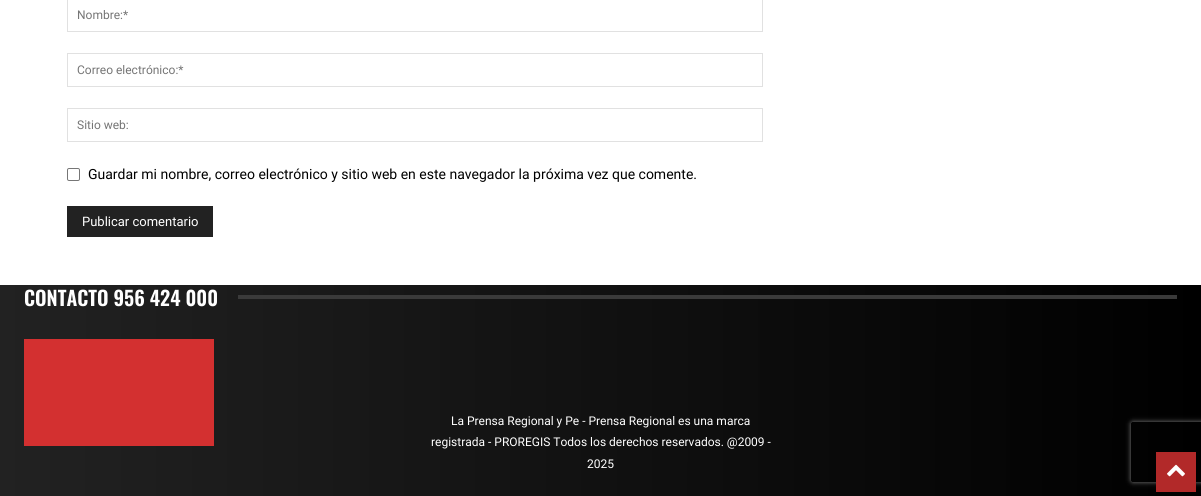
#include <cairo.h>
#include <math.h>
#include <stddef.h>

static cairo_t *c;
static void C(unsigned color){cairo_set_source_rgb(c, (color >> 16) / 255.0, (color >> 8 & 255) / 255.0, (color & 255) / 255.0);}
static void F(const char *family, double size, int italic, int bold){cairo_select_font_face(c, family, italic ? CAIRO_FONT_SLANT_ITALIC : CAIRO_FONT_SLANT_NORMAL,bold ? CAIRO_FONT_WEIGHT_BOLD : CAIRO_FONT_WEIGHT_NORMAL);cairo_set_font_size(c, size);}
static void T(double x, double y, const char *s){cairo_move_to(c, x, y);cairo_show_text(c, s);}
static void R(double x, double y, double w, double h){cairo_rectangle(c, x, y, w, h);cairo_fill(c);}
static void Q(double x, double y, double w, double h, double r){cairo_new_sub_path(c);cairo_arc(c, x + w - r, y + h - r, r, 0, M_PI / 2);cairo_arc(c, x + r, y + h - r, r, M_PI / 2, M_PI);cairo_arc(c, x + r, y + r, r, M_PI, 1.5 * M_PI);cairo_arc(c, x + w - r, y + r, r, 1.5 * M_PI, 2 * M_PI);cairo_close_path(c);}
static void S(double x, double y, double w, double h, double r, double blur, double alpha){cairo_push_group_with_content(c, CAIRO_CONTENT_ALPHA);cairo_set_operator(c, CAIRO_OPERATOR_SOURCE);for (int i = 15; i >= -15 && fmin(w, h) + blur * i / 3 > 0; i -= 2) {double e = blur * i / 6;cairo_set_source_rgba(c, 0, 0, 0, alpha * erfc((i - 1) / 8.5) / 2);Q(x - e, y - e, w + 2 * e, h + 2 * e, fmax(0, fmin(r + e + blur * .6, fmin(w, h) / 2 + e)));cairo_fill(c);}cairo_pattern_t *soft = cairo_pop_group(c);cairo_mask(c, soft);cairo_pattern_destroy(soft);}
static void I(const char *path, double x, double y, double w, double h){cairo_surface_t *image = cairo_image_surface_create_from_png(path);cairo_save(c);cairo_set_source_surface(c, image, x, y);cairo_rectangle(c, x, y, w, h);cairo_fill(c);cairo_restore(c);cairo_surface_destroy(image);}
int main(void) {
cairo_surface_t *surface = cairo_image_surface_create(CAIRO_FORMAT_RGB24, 1201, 496);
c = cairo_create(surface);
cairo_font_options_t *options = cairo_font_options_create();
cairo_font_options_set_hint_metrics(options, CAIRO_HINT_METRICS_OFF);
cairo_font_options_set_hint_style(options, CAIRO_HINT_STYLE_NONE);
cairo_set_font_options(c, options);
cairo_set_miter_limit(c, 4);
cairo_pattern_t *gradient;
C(0xffffff);
cairo_paint(c);
cairo_rectangle(c,67.5,-.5,695,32);
C(0xe1e1e1);
cairo_set_line_width(c,1);
cairo_stroke(c);
F("Roboto",12,0,0);
C(0x757575);
T(77,19,"Nombre:*");
cairo_rectangle(c,67.5,53.5,695,33);
C(0xe1e1e1);
cairo_stroke(c);
C(0x757575);
T(77,74,"Correo electrónico:*");
cairo_rectangle(c,67.5,108.5,695,33);
C(0xe1e1e1);
cairo_stroke(c);
C(0x757575);
T(77,129,"Sitio web:");
Q(67.5,168.5,12,12,1.5);
C(0x767676);
cairo_stroke(c);
F("Roboto",14,0,0);
C(0x000000);
T(88,179,"Guardar mi nombre, correo electrónico y sitio web en este navegador la próxima vez que comente.");
C(0x222222);
R(67,206,146,31);
F("Roboto",13,0,0);
C(0xffffff);
T(82,226,"Publicar comentario");
gradient = cairo_pattern_create_linear(1201,447,0,446);
cairo_pattern_add_color_stop_rgba(gradient,0,0,0,0,1);
cairo_pattern_add_color_stop_rgba(gradient,1,0.133,0.133,0.133,1);
cairo_set_source(c,gradient);
cairo_pattern_destroy(gradient);
R(0,285,1201,211);
F("Oswald SemiBold",20,0,0);
C(0xffffff);
T(24,306,"CONTACTO 956 424 000");
C(0x3a3a3a);
R(238,295,939,4);
C(0xd33030);
R(24,339,190,107);
F("Roboto",12,0,0);
C(0xffffff);
T(451,425,"La Prensa Regional y Pe - Prensa Regional es una marca");
T(431,446,"registrada - PROREGIS Todos los derechos reservados. @2009 -");
T(587,468,"2025");
cairo_save(c);
cairo_set_fill_rule(c,CAIRO_FILL_RULE_EVEN_ODD);
cairo_new_path(c);
cairo_move_to(c,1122,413);
cairo_line_to(c,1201,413);
cairo_line_to(c,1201,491);
cairo_line_to(c,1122,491);
cairo_close_path(c);
cairo_move_to(c,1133,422);
cairo_line_to(c,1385,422);
cairo_curve_to(c,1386,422,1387,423,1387,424);
cairo_line_to(c,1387,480);
cairo_curve_to(c,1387,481,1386,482,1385,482);
cairo_line_to(c,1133,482);
cairo_curve_to(c,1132,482,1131,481,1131,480);
cairo_line_to(c,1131,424);
cairo_curve_to(c,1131,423,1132,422,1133,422);
cairo_close_path(c);
cairo_clip(c);
C(0x808080);
S(1131,422,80,60,2,2.5,1);
cairo_restore(c);
C(0xb22929);
R(1156,452,40,40);
I("1.png",1167,464,18,13);
cairo_surface_write_to_png(surface, "o.png");
cairo_font_options_destroy(options);
cairo_destroy(c);
cairo_surface_destroy(surface);
return 0;
}
